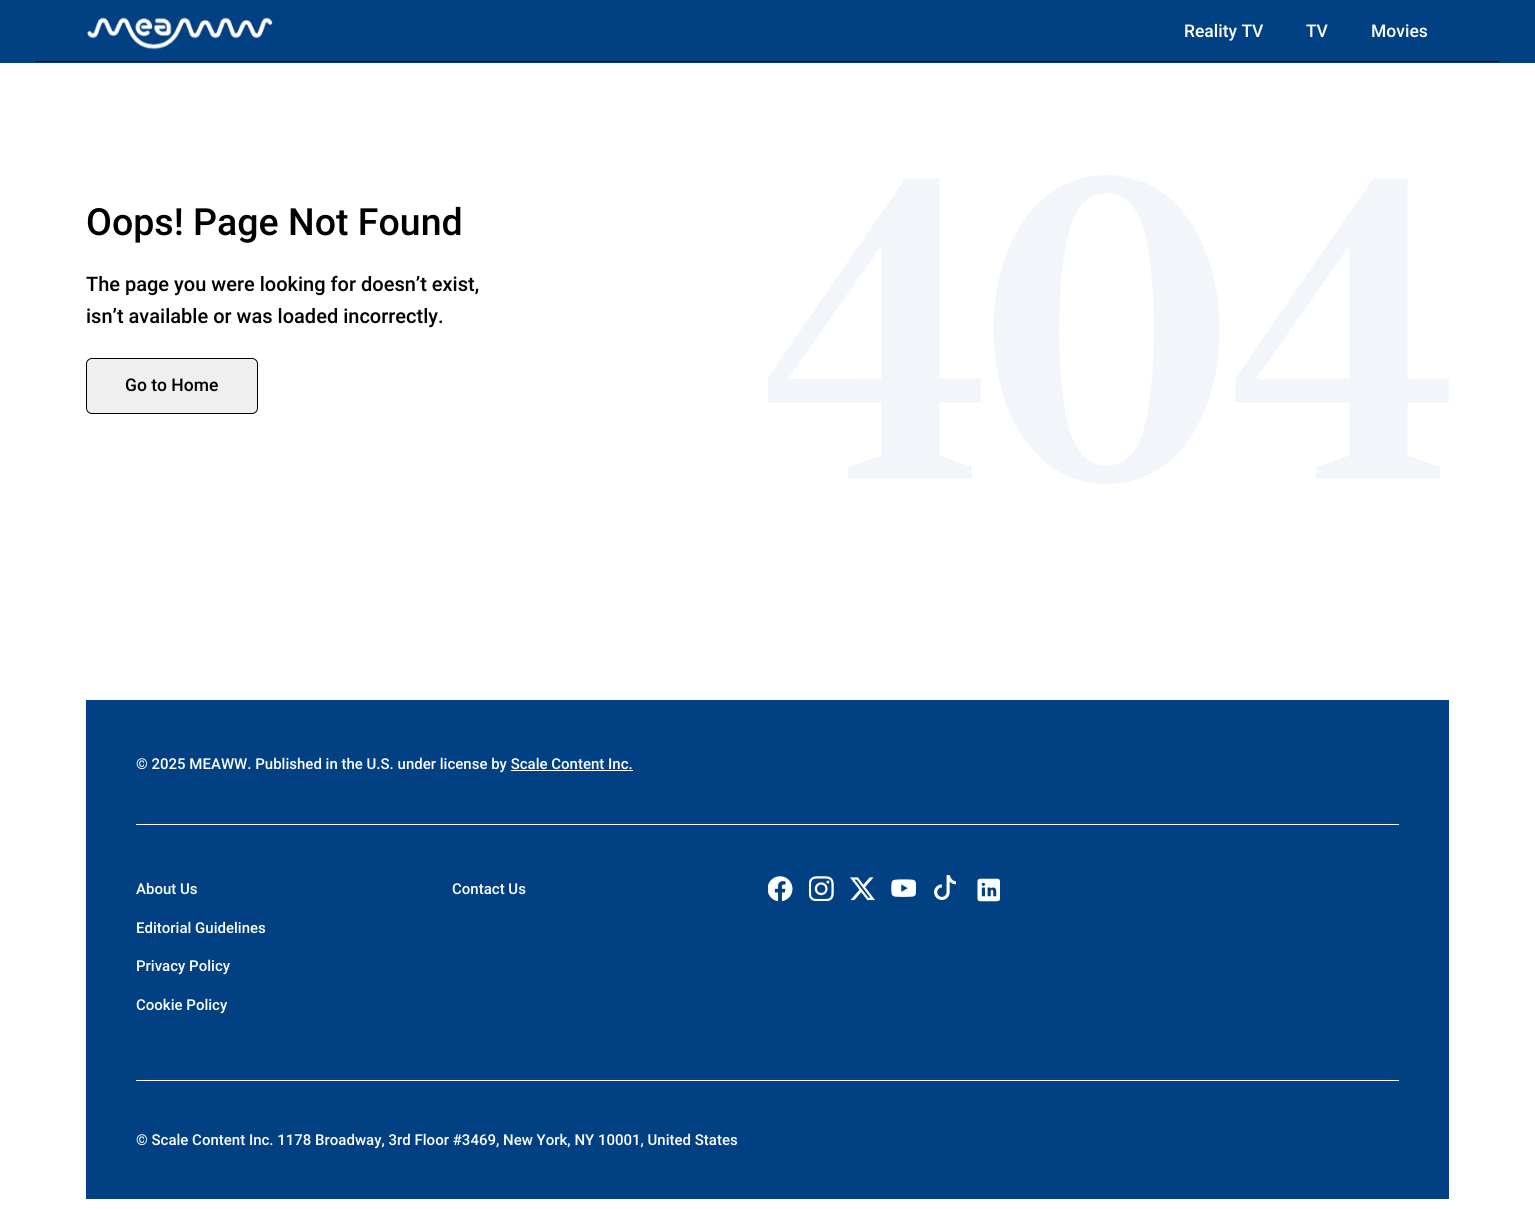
#include <cairo.h>
#include <math.h>
#include <stddef.h>

static cairo_t *c;
static void C(unsigned color){cairo_set_source_rgb(c, (color >> 16) / 255.0, (color >> 8 & 255) / 255.0, (color & 255) / 255.0);}
static void F(const char *family, double size, int italic, int bold){cairo_select_font_face(c, family, italic ? CAIRO_FONT_SLANT_ITALIC : CAIRO_FONT_SLANT_NORMAL,bold ? CAIRO_FONT_WEIGHT_BOLD : CAIRO_FONT_WEIGHT_NORMAL);cairo_set_font_size(c, size);}
static void T(double x, double y, const char *s){cairo_move_to(c, x, y);cairo_show_text(c, s);}
static void R(double x, double y, double w, double h){cairo_rectangle(c, x, y, w, h);cairo_fill(c);}
static void Q(double x, double y, double w, double h, double r){cairo_new_sub_path(c);cairo_arc(c, x + w - r, y + h - r, r, 0, M_PI / 2);cairo_arc(c, x + r, y + h - r, r, M_PI / 2, M_PI);cairo_arc(c, x + r, y + r, r, M_PI, 1.5 * M_PI);cairo_arc(c, x + w - r, y + r, r, 1.5 * M_PI, 2 * M_PI);cairo_close_path(c);}
static void I(const char *path, double x, double y, double w, double h){cairo_surface_t *image = cairo_image_surface_create_from_png(path);cairo_save(c);cairo_set_source_surface(c, image, x, y);cairo_rectangle(c, x, y, w, h);cairo_fill(c);cairo_restore(c);cairo_surface_destroy(image);}
int main(void) {
cairo_surface_t *surface = cairo_image_surface_create(CAIRO_FORMAT_RGB24, 1535, 1209);
c = cairo_create(surface);
cairo_font_options_t *options = cairo_font_options_create();
cairo_font_options_set_hint_metrics(options, CAIRO_HINT_METRICS_OFF);
cairo_font_options_set_hint_style(options, CAIRO_HINT_STYLE_NONE);
cairo_set_font_options(c, options);
cairo_set_miter_limit(c, 4);
C(0xffffff);
cairo_paint(c);
C(0x024084);
R(0,0,1535,63);
C(0x000000);
R(36,61,1463,1);
I("1.png",87,17,186,33);
F("Roboto Medium",17.5,0,0);
C(0xffffff);
T(1184,37,"Reality TV");
T(1306,37,"TV");
T(1371,37,"Movies");
F("Roboto Medium",37.5,0,0);
C(0x000000);
T(86,235,"Oops! Page Not Found");
F("Roboto Medium",20,0,0);
T(86,291,"The page you were looking for doesn’t exist,");
T(86,323,"isn’t available or was loaded incorrectly.");
C(0xefefef);
Q(86.5,358.5,171,55,5.5);
cairo_fill_preserve(c);
C(0x000000);
cairo_set_line_width(c,1);
cairo_stroke(c);
F("Roboto Medium",17.5,0,0);
T(125,391,"Go to Home");
I("2.png",768,175,681,309);
C(0x024084);
R(86,700,1363,499);
F("Roboto Medium",15,0,0);
C(0xffffff);
T(136,769,"© 2025 MEAWW. Published in the U.S. under license by Scale Content Inc.");
R(511,770,122,1);
R(136,824,1263,1);
T(136,894,"About Us");
T(136,933,"Editorial Guidelines");
T(136,971,"Privacy Policy");
T(136,1010,"Cookie Policy");
T(452,894,"Contact Us");
I("3.png",768,876,25,25);
I("4.png",809,876,25,25);
I("5.png",850,877,25,24);
I("6.png",891,879,25,18);
I("7.png",934,875,22,25);
I("8.png",977,878,23,24);
R(136,1080,1263,1);
T(136,1145,"© Scale Content Inc. 1178 Broadway, 3rd Floor #3469, New York, NY 10001, United States");
cairo_surface_write_to_png(surface, "o.png");
cairo_font_options_destroy(options);
cairo_destroy(c);
cairo_surface_destroy(surface);
return 0;
}
